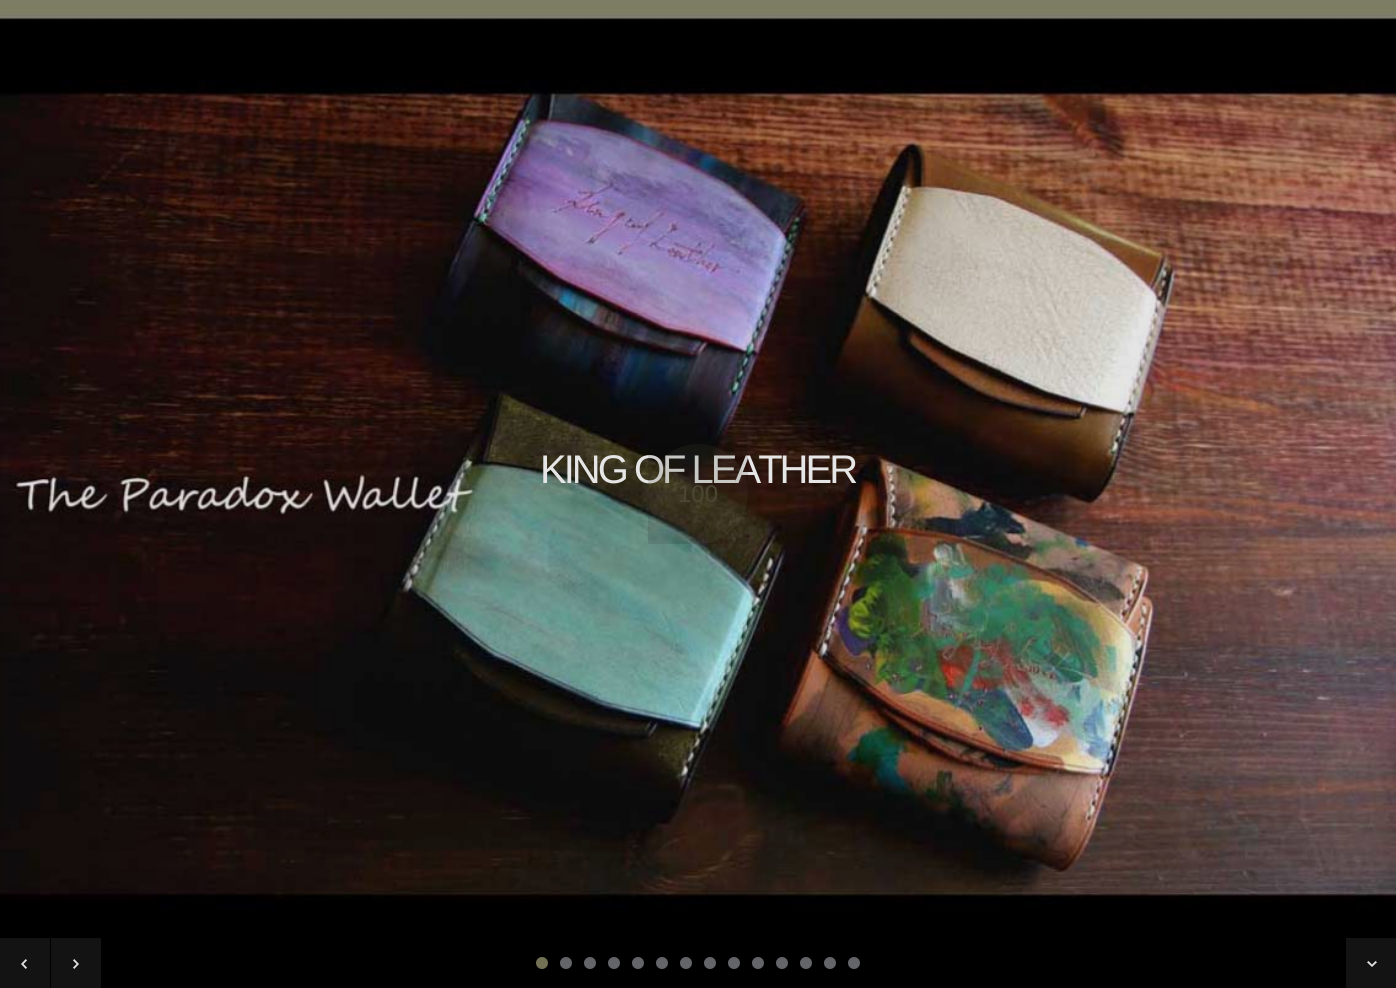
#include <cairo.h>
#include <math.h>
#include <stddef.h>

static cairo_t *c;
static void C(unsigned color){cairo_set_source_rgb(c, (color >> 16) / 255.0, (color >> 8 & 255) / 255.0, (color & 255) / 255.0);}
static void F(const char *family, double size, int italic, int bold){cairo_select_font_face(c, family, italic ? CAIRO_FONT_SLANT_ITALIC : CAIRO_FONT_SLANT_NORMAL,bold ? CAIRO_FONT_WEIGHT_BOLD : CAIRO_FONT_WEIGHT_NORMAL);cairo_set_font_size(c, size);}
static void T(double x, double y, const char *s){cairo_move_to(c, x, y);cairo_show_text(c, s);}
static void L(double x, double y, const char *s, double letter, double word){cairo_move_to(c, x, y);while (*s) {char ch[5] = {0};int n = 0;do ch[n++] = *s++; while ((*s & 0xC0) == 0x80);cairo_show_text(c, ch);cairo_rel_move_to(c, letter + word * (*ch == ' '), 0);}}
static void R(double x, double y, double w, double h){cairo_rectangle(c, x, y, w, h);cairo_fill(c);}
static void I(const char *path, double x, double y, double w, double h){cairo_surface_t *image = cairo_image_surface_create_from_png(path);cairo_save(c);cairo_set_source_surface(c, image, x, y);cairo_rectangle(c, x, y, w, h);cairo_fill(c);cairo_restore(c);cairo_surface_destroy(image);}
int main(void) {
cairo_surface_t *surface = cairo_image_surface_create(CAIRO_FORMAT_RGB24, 1396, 988);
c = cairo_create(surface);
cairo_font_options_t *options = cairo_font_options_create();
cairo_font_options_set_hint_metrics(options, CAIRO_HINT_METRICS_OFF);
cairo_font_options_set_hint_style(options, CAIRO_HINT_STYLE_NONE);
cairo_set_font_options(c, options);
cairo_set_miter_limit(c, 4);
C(0xffffff);
cairo_paint(c);
I("1.png",0,0,1396,938);
F("Liberation Sans",40,0,0);
C(0xe6e6e6);
L(540,483,"KING OF LEATHER",-3,0);
C(0x000000);
R(50,938,1296,50);
C(0x131314);
R(0,938,50,50);
I("2.png",21,959,6,10);
R(51,938,50,50);
I("3.png",73,959,6,10);
C(0x737154);
cairo_arc(c,542,963,6,0,2 * M_PI);
cairo_fill(c);
C(0x636568);
cairo_arc(c,566,963,6,0,2 * M_PI);
cairo_fill(c);
cairo_arc(c,590,963,6,0,2 * M_PI);
cairo_fill(c);
cairo_arc(c,614,963,6,0,2 * M_PI);
cairo_fill(c);
cairo_arc(c,638,963,6,0,2 * M_PI);
cairo_fill(c);
cairo_arc(c,662,963,6,0,2 * M_PI);
cairo_fill(c);
cairo_arc(c,686,963,6,0,2 * M_PI);
cairo_fill(c);
cairo_arc(c,710,963,6,0,2 * M_PI);
cairo_fill(c);
cairo_arc(c,734,963,6,0,2 * M_PI);
cairo_fill(c);
cairo_arc(c,758,963,6,0,2 * M_PI);
cairo_fill(c);
cairo_arc(c,782,963,6,0,2 * M_PI);
cairo_fill(c);
cairo_arc(c,806,963,6,0,2 * M_PI);
cairo_fill(c);
cairo_arc(c,830,963,6,0,2 * M_PI);
cairo_fill(c);
cairo_arc(c,854,963,6,0,2 * M_PI);
cairo_fill(c);
C(0x131314);
R(1346,938,50,50);
I("4.png",1367,961,10,6);
cairo_set_source_rgba(c,0,0,0,0.1);
R(648,444,100,100);
cairo_set_source_rgba(c,0.502,0.49,0.365,0.1);
cairo_arc(c,698,494,50,0,2 * M_PI);
cairo_fill(c);
F("Liberation Sans",24,0,0);
C(0x4b4533);
T(678,502,"100");
cairo_surface_write_to_png(surface, "o.png");
cairo_font_options_destroy(options);
cairo_destroy(c);
cairo_surface_destroy(surface);
return 0;
}
